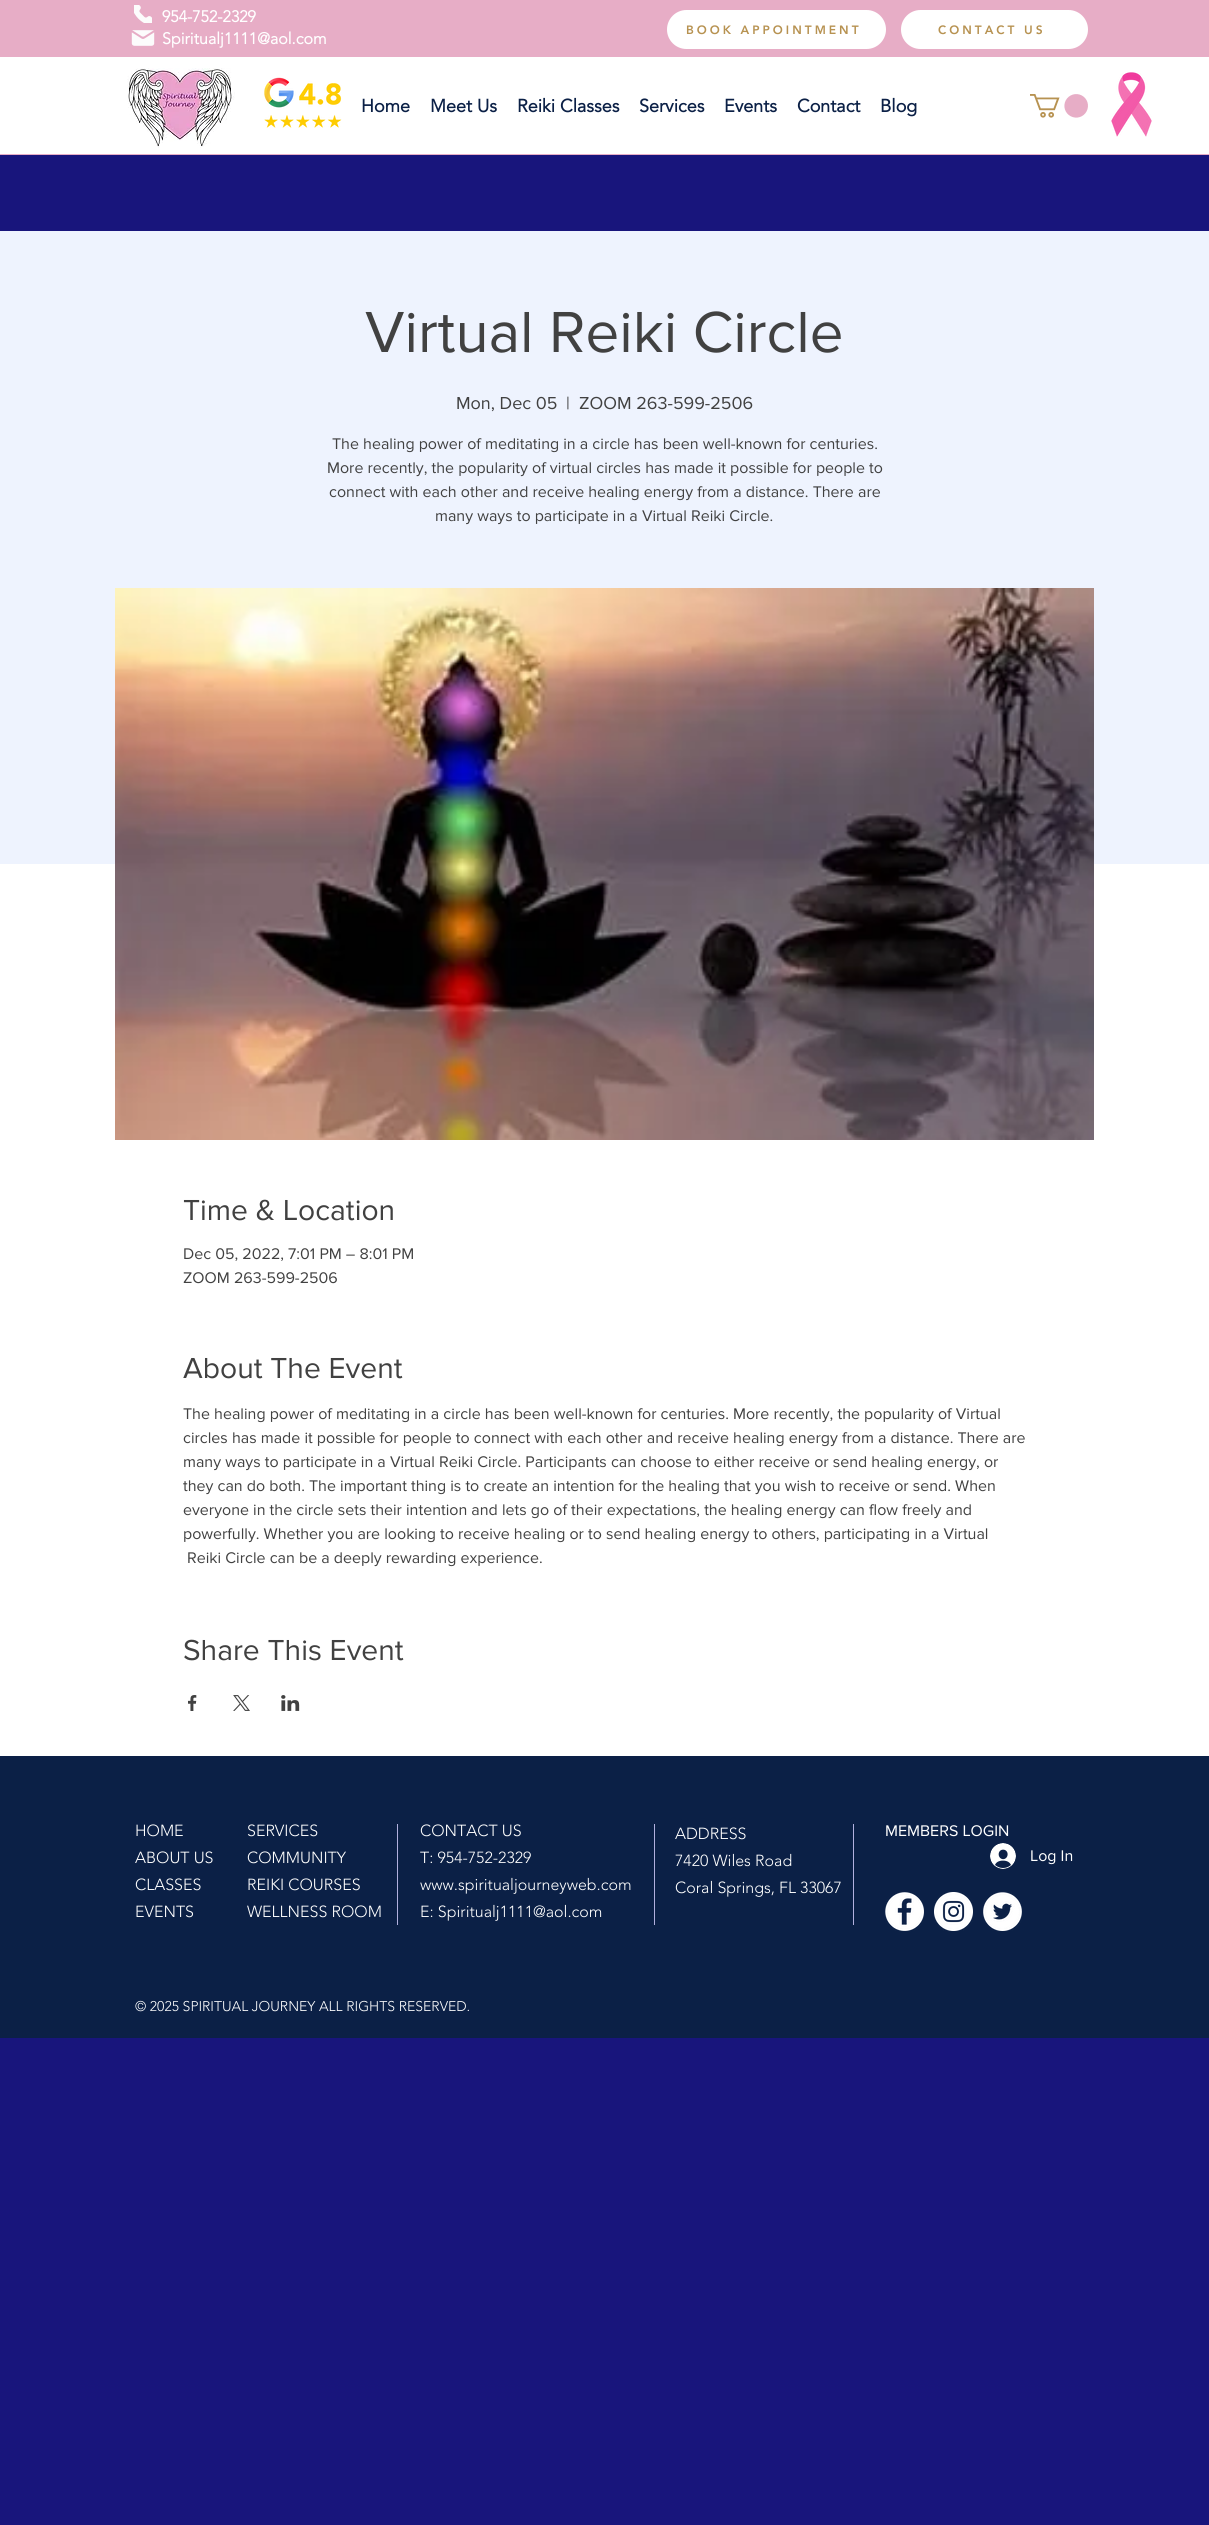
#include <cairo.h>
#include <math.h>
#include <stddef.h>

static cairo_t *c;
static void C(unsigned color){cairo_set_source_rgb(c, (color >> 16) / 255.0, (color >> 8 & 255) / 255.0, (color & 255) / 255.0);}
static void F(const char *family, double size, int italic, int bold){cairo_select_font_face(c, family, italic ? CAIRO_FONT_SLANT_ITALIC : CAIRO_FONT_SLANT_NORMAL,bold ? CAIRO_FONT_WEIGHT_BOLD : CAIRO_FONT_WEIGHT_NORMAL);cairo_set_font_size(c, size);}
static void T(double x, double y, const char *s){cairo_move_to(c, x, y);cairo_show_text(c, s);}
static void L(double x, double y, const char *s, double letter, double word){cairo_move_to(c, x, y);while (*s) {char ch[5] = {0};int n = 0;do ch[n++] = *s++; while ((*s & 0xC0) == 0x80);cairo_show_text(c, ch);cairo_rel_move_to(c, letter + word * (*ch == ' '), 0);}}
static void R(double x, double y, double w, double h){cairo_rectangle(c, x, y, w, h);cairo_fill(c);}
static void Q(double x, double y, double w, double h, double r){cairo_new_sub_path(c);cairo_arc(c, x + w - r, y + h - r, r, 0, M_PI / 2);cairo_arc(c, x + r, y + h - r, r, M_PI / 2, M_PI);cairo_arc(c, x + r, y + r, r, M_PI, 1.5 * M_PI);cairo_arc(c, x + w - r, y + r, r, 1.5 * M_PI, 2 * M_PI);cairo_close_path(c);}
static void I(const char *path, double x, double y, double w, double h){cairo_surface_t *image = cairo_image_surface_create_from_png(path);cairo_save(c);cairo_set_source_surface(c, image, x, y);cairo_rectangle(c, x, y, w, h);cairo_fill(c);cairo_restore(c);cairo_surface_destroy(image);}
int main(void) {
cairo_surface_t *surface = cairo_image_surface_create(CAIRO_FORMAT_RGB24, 1209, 2525);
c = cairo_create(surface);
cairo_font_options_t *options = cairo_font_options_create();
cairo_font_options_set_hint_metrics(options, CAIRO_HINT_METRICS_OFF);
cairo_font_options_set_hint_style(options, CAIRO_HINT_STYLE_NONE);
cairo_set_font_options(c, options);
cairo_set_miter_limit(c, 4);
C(0x18157c);
cairo_paint(c);
C(0xe7adc6);
R(0,0,1209,155);
I("1.png",134,5,18,18);
F("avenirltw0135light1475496",16,0,1);
C(0xffffff);
T(162,22,"954-752-2329");
I("2.png",131,30,24,16);
T(162,44,"Spiritualj1111@aol.com");
Q(667,10,219,39,19.5);
cairo_fill(c);
F("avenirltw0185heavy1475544 Black",12,0,0);
C(0xb79251);
L(686,34,"BOOK APPOINTMENT",3,0);
C(0xffffff);
Q(901,10,187,39,19.5);
cairo_fill(c);
C(0xb79251);
L(938,34,"CONTACT US",3,0);
C(0xffffff);
R(0,57,1209,97);
I("3.png",127,68,108,80);
I("4.png",264,77,78,51);
F("Avenir",18,0,1);
C(0x0b2046);
T(361,112,"Home");
T(430,112,"Meet Us");
T(517,112,"Reiki Classes");
T(639,112,"Services");
T(724,112,"Events");
T(797,112,"Contact");
T(880,112,"Blog");
I("5.png",1030,94,58,24);
I("6.png",1111,72,41,65);
C(0xeef3fe);
R(0,231,1209,633);
F("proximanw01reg",60,0,0);
C(0x414141);
T(365,352,"Virtual Reiki Circle");
F("proximanw01reg",18,0,0);
T(456,409,"Mon, Dec 05");
T(566,409,"|");
T(579,409,"ZOOM 263-599-2506");
F("proximanw01reg",16,0,0);
T(332,449,"The healing power of meditating in a circle has been well-known for centuries.");
T(327,473,"More recently, the popularity of virtual circles has made it possible for people to");
T(329,497,"connect with each other and receive healing energy from a distance. There are");
T(435,521,"many ways to participate in a Virtual Reiki Circle.");
C(0xffffff);
R(0,864,1209,892);
I("7.png",115,588,979,552);
F("proximanw01reg",30,0,0);
C(0x414141);
T(183,1220,"Time & Location");
F("proximanw01reg",16,0,0);
T(183,1259,"Dec 05, 2022, 7:01 PM – 8:01 PM");
T(183,1283,"ZOOM 263-599-2506");
F("proximanw01reg",30,0,0);
T(183,1378,"About The Event");
F("proximanw01reg",16,0,0);
T(183,1419,"The healing power of meditating in a circle has been well-known for centuries. More recently, the popularity of Virtual");
T(183,1443,"circles has made it possible for people to connect with each other and receive healing energy from a distance. There are");
T(183,1467,"many ways to participate in a Virtual Reiki Circle. Participants can choose to either receive or send healing energy, or");
T(183,1491,"they can do both. The important thing is to create an intention for the healing that you wish to receive or send. When");
T(183,1515,"everyone in the circle sets their intention and lets go of their expectations, the healing energy can flow freely and");
T(183,1539,"powerfully. Whether you are looking to receive healing or to send healing energy to others, participating in a Virtual");
T(187,1563,"Reiki Circle can be a deeply rewarding experience.");
F("proximanw01reg",30,0,0);
T(183,1660,"Share This Event");
I("8.png",188,1695,9,16);
I("9.png",233,1695,17,16);
I("10.png",281,1695,19,16);
C(0x0b2046);
R(0,1756,1209,282);
F("avenirltw0135light1475496 Light",16,0,0);
C(0xffffff);
T(135,1836,"HOME");
T(135,1863,"ABOUT US");
T(135,1890,"CLASSES");
T(135,1917,"EVENTS");
T(247,1836,"SERVICES");
T(247,1863,"COMMUNITY");
T(247,1890,"REIKI COURSES");
T(247,1917,"WELLNESS ROOM");
C(0xb1b0de);
R(397,1824,1,101);
C(0xffffff);
T(420,1836,"CONTACT US");
T(420,1863,"T: 954-752-2329");
T(420,1890,"www.spiritualjourneyweb.com");
T(420,1917,"E: Spiritualj1111@aol.com");
C(0xb1b0de);
R(654,1824,1,101);
C(0xffffff);
T(675,1839,"ADDRESS");
T(675,1866,"7420 Wiles Road");
T(675,1893,"Coral Springs, FL 33067");
C(0xb1b0de);
R(853,1824,1,101);
F("proximanw01reg",16,0,0);
C(0xffffff);
T(885,1836,"MEMBERS LOGIN");
I("11.png",990,1843,26,26);
T(1030,1861,"Log In");
I("12.png",885,1892,39,39);
I("13.png",934,1892,39,39);
I("14.png",983,1892,39,39);
F("avenirltw0135light1475496 Light",14,0,0);
T(135,2011,"© 2025 SPIRITUAL JOURNEY ALL RIGHTS RESERVED.");
cairo_surface_write_to_png(surface, "o.png");
cairo_font_options_destroy(options);
cairo_destroy(c);
cairo_surface_destroy(surface);
return 0;
}
